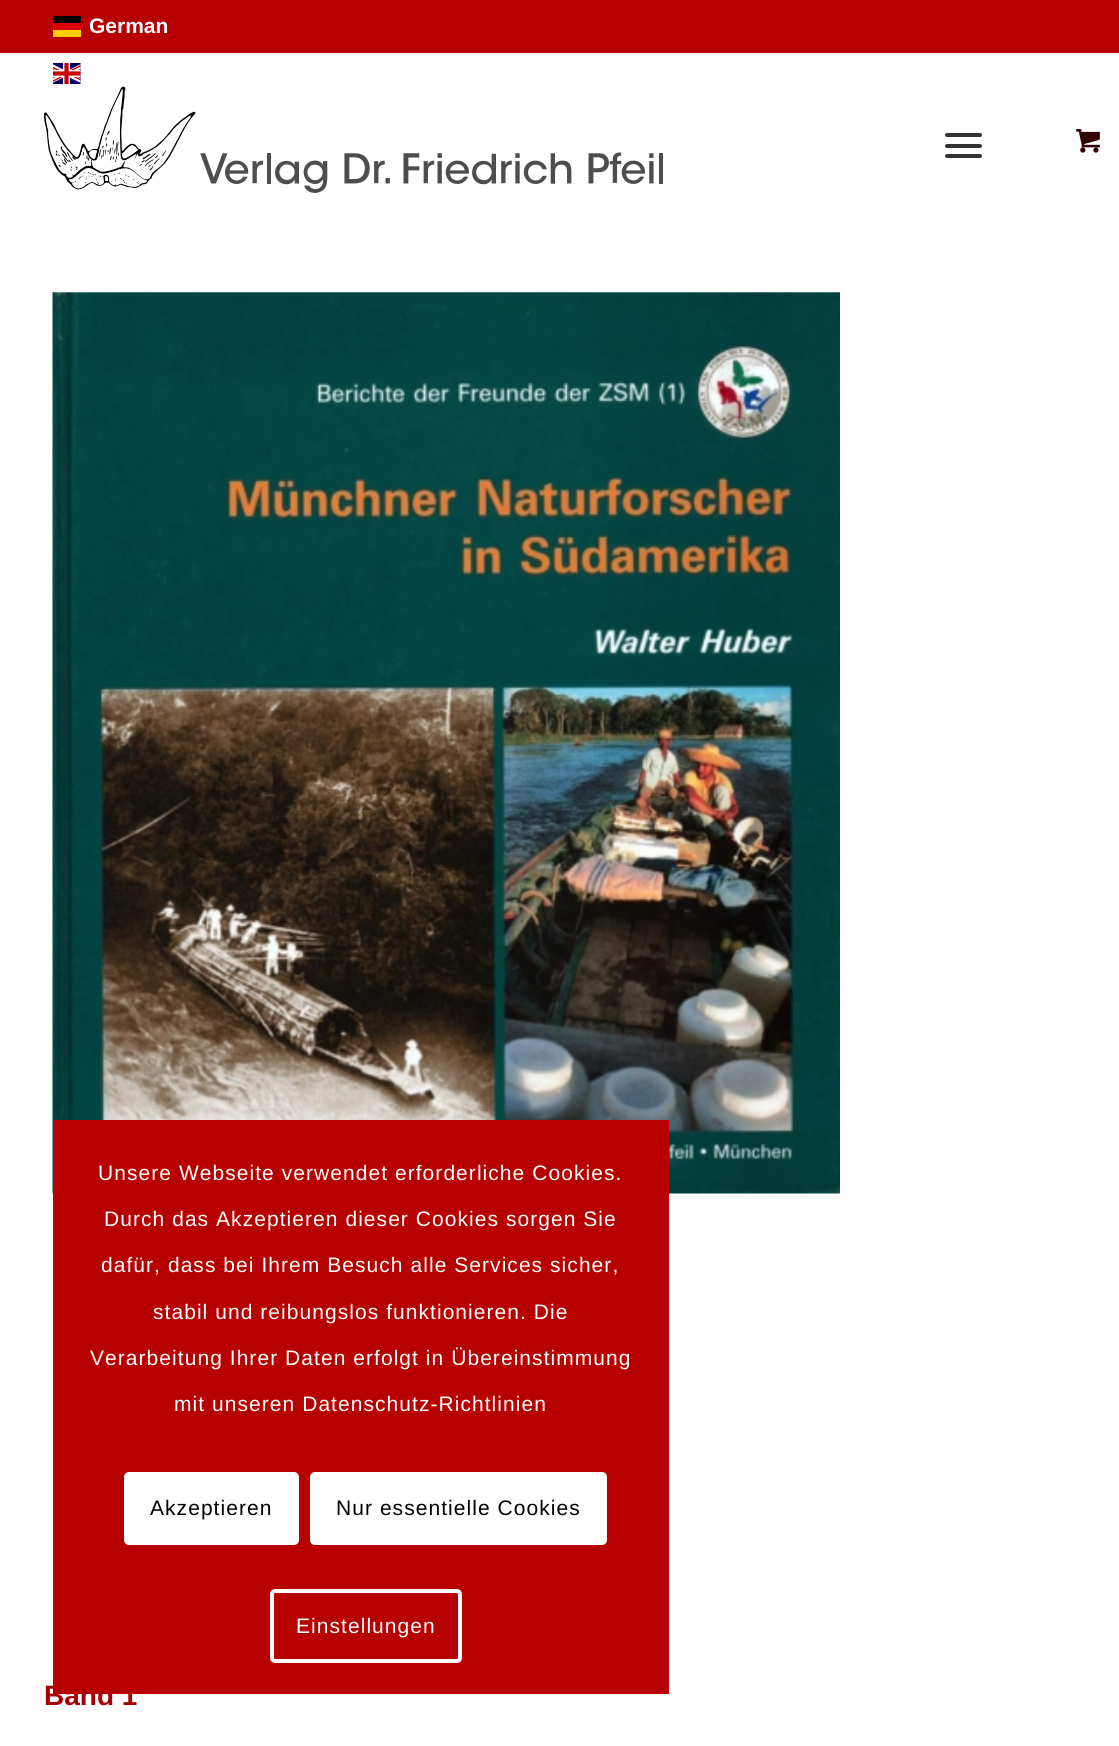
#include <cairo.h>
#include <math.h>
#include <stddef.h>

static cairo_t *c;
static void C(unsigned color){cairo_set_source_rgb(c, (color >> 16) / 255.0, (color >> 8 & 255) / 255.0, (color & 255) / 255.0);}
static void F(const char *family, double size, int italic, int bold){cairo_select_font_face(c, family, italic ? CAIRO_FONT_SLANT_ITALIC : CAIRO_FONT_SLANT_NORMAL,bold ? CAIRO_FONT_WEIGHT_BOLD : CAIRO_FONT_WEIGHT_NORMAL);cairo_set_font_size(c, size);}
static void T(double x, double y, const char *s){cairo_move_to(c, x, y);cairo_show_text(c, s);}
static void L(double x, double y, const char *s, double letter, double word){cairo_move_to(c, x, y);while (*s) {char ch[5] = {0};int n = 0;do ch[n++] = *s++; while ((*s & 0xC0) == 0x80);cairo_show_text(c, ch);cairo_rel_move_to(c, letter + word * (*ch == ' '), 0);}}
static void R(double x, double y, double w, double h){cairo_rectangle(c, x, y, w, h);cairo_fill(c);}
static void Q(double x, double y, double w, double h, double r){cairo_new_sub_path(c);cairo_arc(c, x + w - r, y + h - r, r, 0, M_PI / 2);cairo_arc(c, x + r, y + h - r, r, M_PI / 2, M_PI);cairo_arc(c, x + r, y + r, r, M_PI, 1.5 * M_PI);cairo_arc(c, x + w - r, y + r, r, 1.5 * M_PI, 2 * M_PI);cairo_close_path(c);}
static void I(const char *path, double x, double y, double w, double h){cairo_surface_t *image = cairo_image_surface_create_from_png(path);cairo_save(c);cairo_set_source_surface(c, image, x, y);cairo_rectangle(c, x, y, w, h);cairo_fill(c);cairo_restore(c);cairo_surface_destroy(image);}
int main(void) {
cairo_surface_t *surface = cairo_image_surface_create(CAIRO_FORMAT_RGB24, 1119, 1746);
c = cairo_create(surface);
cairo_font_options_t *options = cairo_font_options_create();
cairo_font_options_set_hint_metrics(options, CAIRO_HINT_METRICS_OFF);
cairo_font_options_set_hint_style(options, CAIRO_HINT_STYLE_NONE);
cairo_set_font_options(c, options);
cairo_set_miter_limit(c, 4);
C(0xffffff);
cairo_paint(c);
C(0xb70000);
R(0,0,1119,53);
C(0xffce00);
R(53,30,28,7);
C(0x000000);
R(53,16,28,7);
C(0xdd0000);
R(53,23,28,7);
F("Liberation Sans",21,0,1);
C(0xffffff);
T(89,33,"German");
I("1.png",53,63,28,21);
I("4.png",52,292,788,902);
F("Liberation Sans",28,0,1);
C(0xa80000);
T(44,1705,"Band 1");
C(0xb70000);
R(53,1120,616,574);
F("Liberation Sans",21,0,0);
C(0xffffff);
L(98,1180,"Unsere Webseite verwendet erforderliche Cookies.",1.05,0);
L(104,1226,"Durch das Akzeptieren dieser Cookies sorgen Sie",1.05,0);
L(101,1272,"dafür, dass bei Ihrem Besuch alle Services sicher,",1.05,0);
L(153,1319,"stabil und reibungslos funktionieren. Die",1.05,0);
L(90,1365,"Verarbeitung Ihrer Daten erfolgt in Übereinstimmung",1.05,0);
L(174,1411,"mit unseren Datenschutz-Richtlinien",1.05,0);
Q(124,1472,175,73,5);
cairo_fill(c);
C(0x000000);
L(150,1515,"Akzeptieren",1.05,0);
C(0xffffff);
Q(310,1472,297,73,5);
cairo_fill(c);
C(0x000000);
L(336,1515,"Nur essentielle Cookies",1.05,0);
Q(272,1591,188,70,3);
C(0xffffff);
cairo_set_line_width(c,4);
cairo_stroke(c);
L(296,1633,"Einstellungen",1.05,0);
I("2.png",44,86,619,107);
C(0x333333);
Q(945,144,37,4,2);
cairo_fill(c);
Q(945,133,37,4,2);
cairo_fill(c);
Q(945,154,37,4,2);
cairo_fill(c);
I("3.png",1076,129,24,24);
cairo_surface_write_to_png(surface, "o.png");
cairo_font_options_destroy(options);
cairo_destroy(c);
cairo_surface_destroy(surface);
return 0;
}
